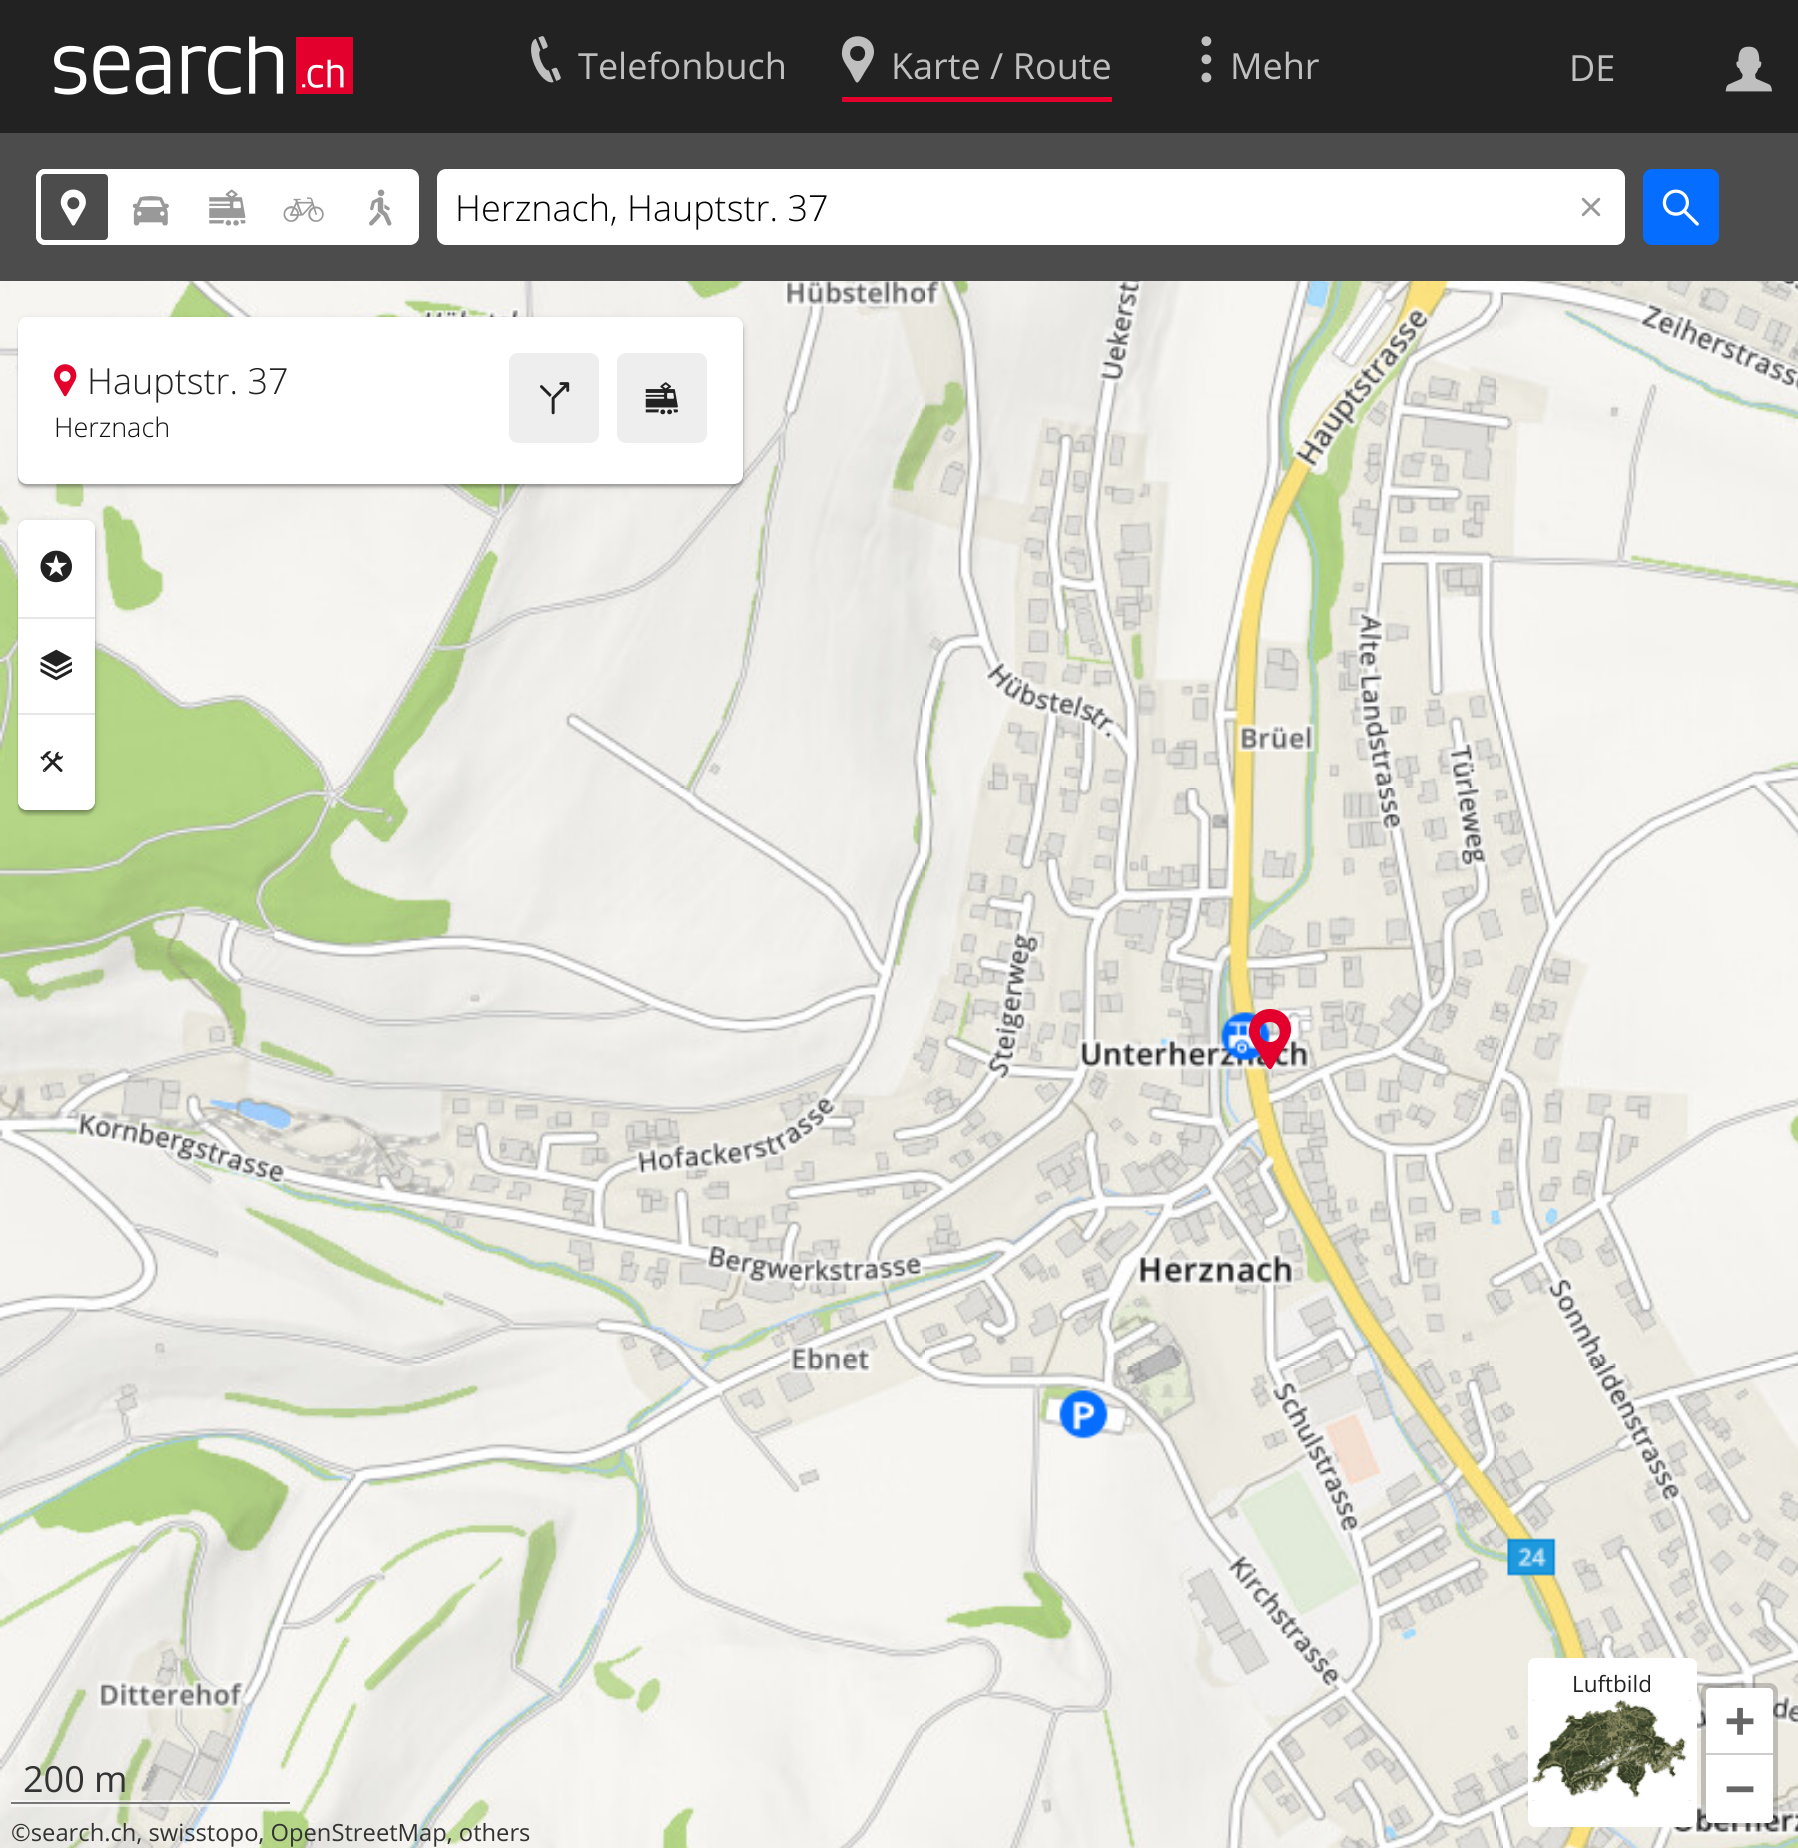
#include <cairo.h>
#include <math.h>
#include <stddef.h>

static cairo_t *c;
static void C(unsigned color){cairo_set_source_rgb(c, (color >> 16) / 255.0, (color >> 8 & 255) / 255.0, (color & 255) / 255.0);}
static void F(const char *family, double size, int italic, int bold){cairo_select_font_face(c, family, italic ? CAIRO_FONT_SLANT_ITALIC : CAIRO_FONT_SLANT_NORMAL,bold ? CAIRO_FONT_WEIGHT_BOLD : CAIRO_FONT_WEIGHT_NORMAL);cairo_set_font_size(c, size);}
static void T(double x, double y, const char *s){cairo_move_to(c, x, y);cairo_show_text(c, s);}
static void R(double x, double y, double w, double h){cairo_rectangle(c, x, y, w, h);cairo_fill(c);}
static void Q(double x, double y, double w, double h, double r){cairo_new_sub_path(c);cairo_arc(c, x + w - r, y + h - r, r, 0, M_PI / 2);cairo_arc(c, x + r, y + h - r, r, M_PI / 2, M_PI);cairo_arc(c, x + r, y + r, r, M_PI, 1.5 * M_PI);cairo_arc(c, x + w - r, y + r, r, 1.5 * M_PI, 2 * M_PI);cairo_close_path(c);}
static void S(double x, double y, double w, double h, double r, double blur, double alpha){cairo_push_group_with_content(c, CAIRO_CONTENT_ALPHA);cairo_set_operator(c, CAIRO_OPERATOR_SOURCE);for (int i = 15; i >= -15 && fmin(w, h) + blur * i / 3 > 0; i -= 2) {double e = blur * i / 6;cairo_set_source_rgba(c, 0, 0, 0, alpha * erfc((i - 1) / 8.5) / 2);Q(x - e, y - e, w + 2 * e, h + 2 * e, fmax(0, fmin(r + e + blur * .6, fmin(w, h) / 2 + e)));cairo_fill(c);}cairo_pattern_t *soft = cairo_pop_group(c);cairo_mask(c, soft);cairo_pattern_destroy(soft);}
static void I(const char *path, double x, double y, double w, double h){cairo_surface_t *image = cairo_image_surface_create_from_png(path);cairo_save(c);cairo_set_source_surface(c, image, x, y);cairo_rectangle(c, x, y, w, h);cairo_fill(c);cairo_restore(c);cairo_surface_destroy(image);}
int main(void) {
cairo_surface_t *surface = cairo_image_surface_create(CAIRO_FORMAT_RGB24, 1798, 1848);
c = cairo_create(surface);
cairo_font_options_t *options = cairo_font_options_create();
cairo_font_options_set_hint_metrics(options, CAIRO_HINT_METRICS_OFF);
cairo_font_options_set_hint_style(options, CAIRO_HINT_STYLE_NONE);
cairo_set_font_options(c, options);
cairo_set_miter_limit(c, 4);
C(0xffffff);
cairo_paint(c);
C(0x222222);
R(0,0,1798,133);
I("1.png",54,36,299,59);
I("2.png",531,36,30,47);
F("Open Sans",36,0,0);
C(0xbfbfbf);
T(578,79,"Telefonbuch");
C(0xe4002c);
R(842,97,270,5);
C(0xbfbfbf);
cairo_new_path(c);
cairo_move_to(c,874,52);
cairo_curve_to(c,874,32,843,30,842,52);
cairo_curve_to(c,841,59,847,66,850,71);
cairo_curve_to(c,857,84,856,87,863,75);
cairo_curve_to(c,866,69,874,60,874,52);
cairo_close_path(c);
cairo_move_to(c,858,61);
cairo_curve_to(c,848,61,847,46,858,46);
cairo_curve_to(c,868,46,867,61,858,61);
cairo_close_path(c);
cairo_fill(c);
T(891,79,"Karte / Route");
I("3.png",1201,36,11,47);
T(1230,79,"Mehr");
T(1569,81,"DE");
I("4.png",1725,46,47,46);
C(0x4c4c4c);
R(0,133,1798,148);
C(0xffffff);
Q(36,169,383,76,9);
cairo_fill(c);
C(0x4c4c4c);
Q(38.5,171.5,72,71,6.5);
cairo_fill_preserve(c);
C(0xffffff);
cairo_set_line_width(c,5);
cairo_stroke(c);
I("5.png",60,189,26,37);
I("6.png",132,196,37,30);
I("7.png",209,189,37,37);
I("8.png",283,197,41,25);
I("9.png",369,189,23,37);
Q(437,169,1188,76,9);
cairo_fill(c);
F("Open Sans Light",36,0,0);
C(0x000000);
T(455,221,"Herznach, Hauptstr. 37");
I("10.png",1581,197,20,20);
C(0x056dff);
Q(1643,169,76,76,9);
cairo_fill(c);
I("11.png",1662,189,37,37);
I("19.png",0,281,351,1085);
I("20.png",351,281,1152,1085);
I("26.png",422,281,1067,1085);
cairo_save(c);
cairo_rectangle(c,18,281,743,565);
cairo_clip(c);
C(0x000000);
S(18,320,725,166,9,3.5,.2);
cairo_restore(c);
C(0x000000);
S(18,322,725,166,9,1,.12);
S(18,320,725,166,9,1,.14);
C(0xffffff);
Q(18,317,725,167,9);
cairo_fill(c);
I("12.png",54,364,23,33);
C(0x222222);
T(87,394,"Hauptstr. 37");
C(0xeeeeee);
Q(509,353,90,90,9);
cairo_fill(c);
I("13.png",540,382,30,33);
Q(617,353,90,90,9);
cairo_fill(c);
I("14.png",645,382,33,33);
F("Open Sans Light",27,0,0);
C(0x111111);
T(54,437,"Herznach");
cairo_save(c);
cairo_rectangle(c,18,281,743,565);
cairo_clip(c);
C(0x000000);
S(18,522,77,290,9,3.5,.2);
cairo_restore(c);
C(0x000000);
S(18,524,77,291,9,1,.12);
S(18,522,77,290,9,1,.14);
C(0xffffff);
Q(18,520,77,290,9);
cairo_fill(c);
cairo_new_path(c);
cairo_move_to(c,27,520);
cairo_line_to(c,86,520);
cairo_curve_to(c,91,520,95,524,95,529);
cairo_line_to(c,95,619);
cairo_line_to(c,18,619);
cairo_line_to(c,18,529);
cairo_curve_to(c,18,524,22,520,27,520);
cairo_close_path(c);
cairo_fill(c);
C(0xe6e6e6);
R(18,617,77,2);
I("15.png",40,550,32,33);
R(18,713,77,2);
I("16.png",40,649,32,32);
C(0xffffff);
cairo_new_path(c);
cairo_move_to(c,18,716);
cairo_line_to(c,95,716);
cairo_line_to(c,95,801);
cairo_curve_to(c,95,806,91,810,86,810);
cairo_line_to(c,27,810);
cairo_curve_to(c,22,810,18,806,18,801);
cairo_close_path(c);
cairo_fill(c);
I("17.png",40,750,23,22);
I("24.png",1503,1366,295,482);
I("30.png",1507,1366,291,482);
Q(1528,1658,169,169,7);
cairo_fill(c);
I("18.png",1532,1699,159,102);
F("Open Sans",22.5,0,0);
C(0x222222);
T(1572,1692,"Luftbild");
I("21.png",1503,281,295,1085);
I("22.png",0,1366,351,482);
I("23.png",351,1366,1152,482);
I("25.png",75,1110,214,79);
I("27.png",1543,281,255,1085);
I("28.png",97,1680,149,31);
I("29.png",789,1366,574,324);
C(0xe4002c);
cairo_new_path(c);
cairo_move_to(c,1291,1030);
cairo_curve_to(c,1291,1003,1251,1001,1249,1030);
cairo_curve_to(c,1248,1038,1256,1049,1260,1055);
cairo_line_to(c,1265,1063);
cairo_curve_to(c,1266,1065,1269,1072,1272,1068);
cairo_line_to(c,1285,1046);
cairo_curve_to(c,1288,1041,1291,1036,1291,1030);
cairo_close_path(c);
cairo_move_to(c,1270,1042);
cairo_curve_to(c,1257,1042,1256,1022,1270,1022);
cairo_curve_to(c,1283,1022,1283,1042,1270,1042);
cairo_close_path(c);
cairo_fill(c);
Q(1703.5,1685.5,72,139,6.5);
cairo_set_source_rgba(c,0,0,0,0.2);
cairo_stroke(c);
C(0xffffff);
cairo_new_path(c);
cairo_move_to(c,1711,1688);
cairo_line_to(c,1768,1688);
cairo_curve_to(c,1771,1688,1773,1690,1773,1693);
cairo_line_to(c,1773,1755);
cairo_line_to(c,1706,1755);
cairo_line_to(c,1706,1693);
cairo_curve_to(c,1706,1690,1708,1688,1711,1688);
cairo_close_path(c);
cairo_fill(c);
C(0xcccccc);
R(1706,1753,67,2);
F("DejaVu Sans Mono",50,0,1);
C(0x666666);
T(1725,1737,"+");
C(0xffffff);
cairo_new_path(c);
cairo_move_to(c,1706,1755);
cairo_line_to(c,1773,1755);
cairo_line_to(c,1773,1818);
cairo_curve_to(c,1773,1821,1771,1823,1768,1823);
cairo_line_to(c,1711,1823);
cairo_curve_to(c,1708,1823,1706,1821,1706,1818);
cairo_close_path(c);
cairo_fill(c);
C(0x666666);
T(1725,1805,"−");
cairo_set_source_rgba(c,1,1,1,0.5);
cairo_new_path(c);
cairo_move_to(c,11,1760);
cairo_line_to(c,11,1807);
cairo_line_to(c,290,1807);
cairo_line_to(c,290,1804);
cairo_line_to(c,11,1804);
cairo_close_path(c);
cairo_fill(c);
R(11,1800,279,2);
C(0x777777);
R(11,1802,279,2);
F("Open Sans",36,0,0);
C(0x333333);
T(23,1792,"200 m");
F("Open Sans",23.75,0,0);
T(11,1841,"©search.ch, swisstopo, OpenStreetMap, others");
cairo_surface_write_to_png(surface, "o.png");
cairo_font_options_destroy(options);
cairo_destroy(c);
cairo_surface_destroy(surface);
return 0;
}
